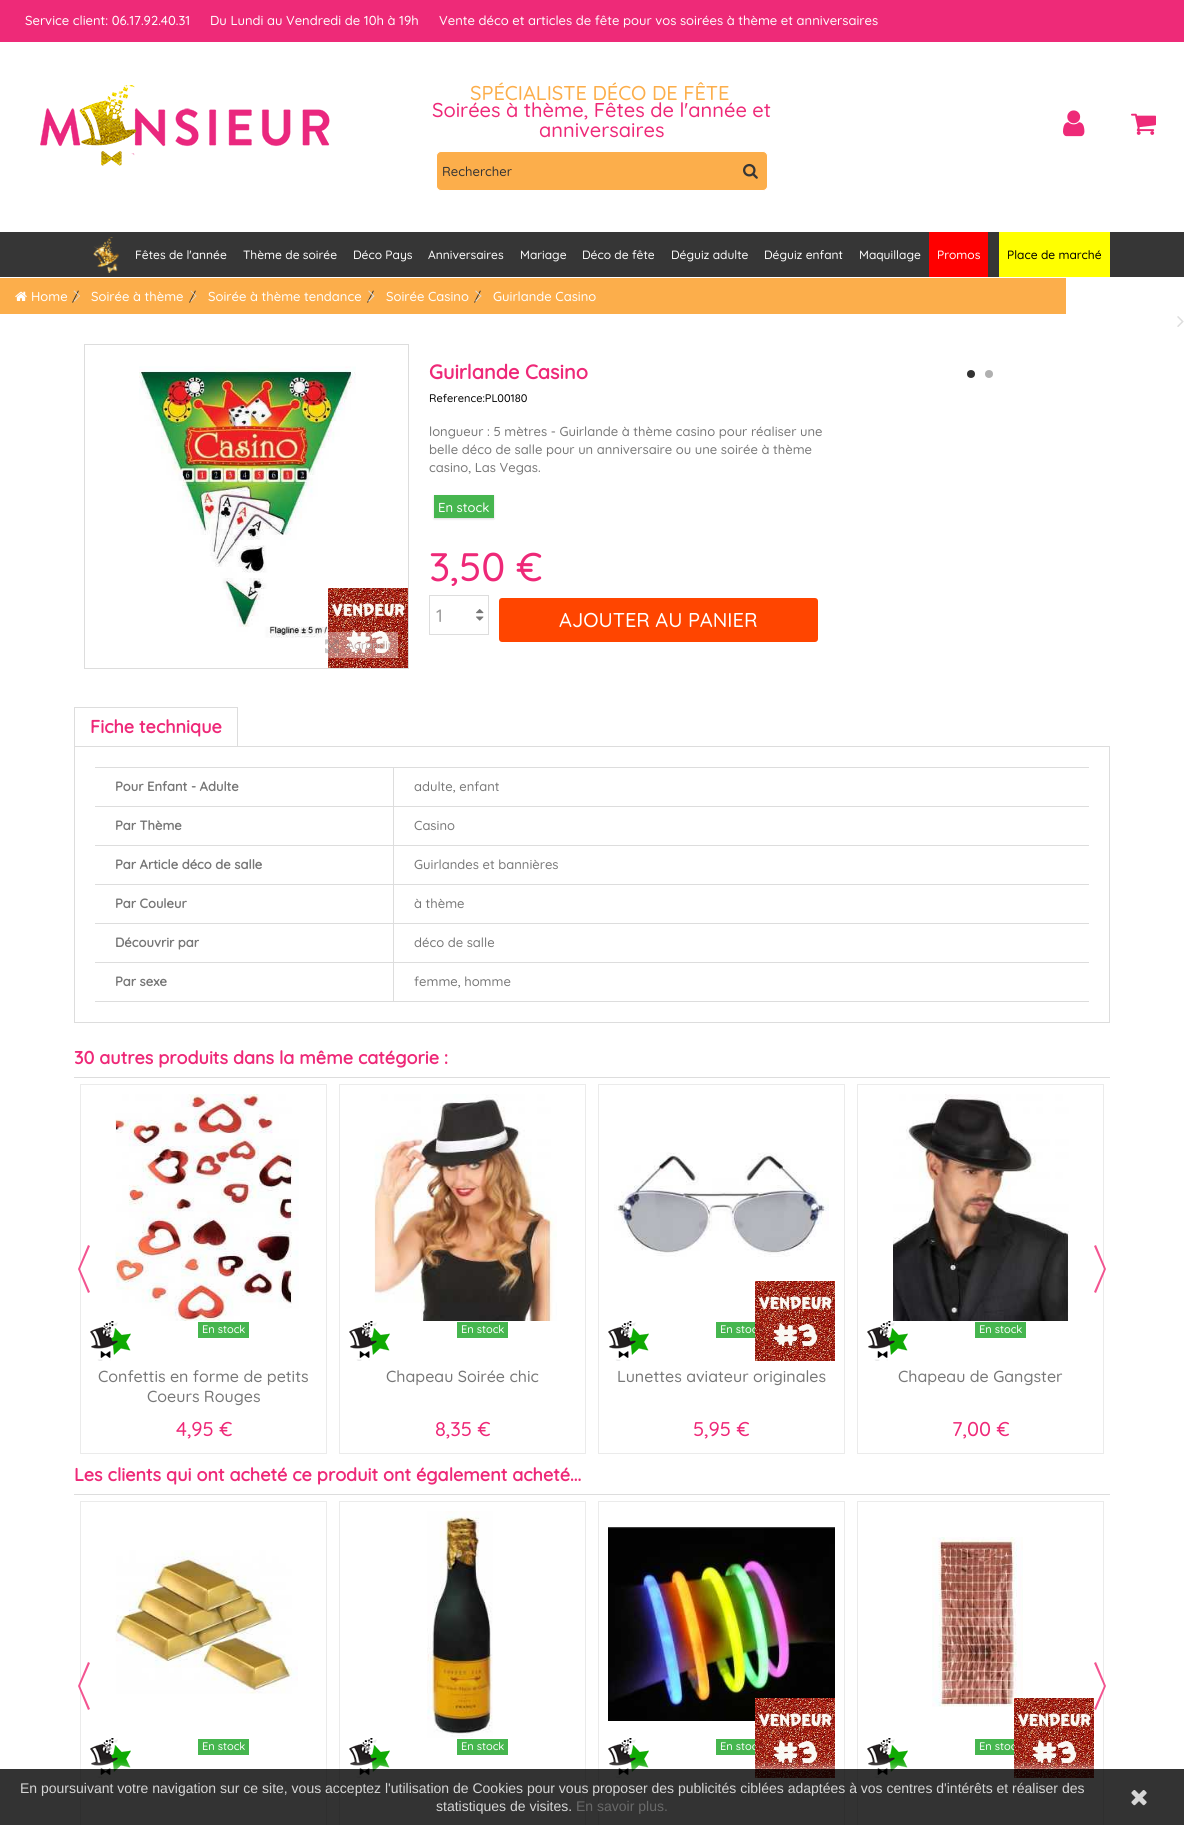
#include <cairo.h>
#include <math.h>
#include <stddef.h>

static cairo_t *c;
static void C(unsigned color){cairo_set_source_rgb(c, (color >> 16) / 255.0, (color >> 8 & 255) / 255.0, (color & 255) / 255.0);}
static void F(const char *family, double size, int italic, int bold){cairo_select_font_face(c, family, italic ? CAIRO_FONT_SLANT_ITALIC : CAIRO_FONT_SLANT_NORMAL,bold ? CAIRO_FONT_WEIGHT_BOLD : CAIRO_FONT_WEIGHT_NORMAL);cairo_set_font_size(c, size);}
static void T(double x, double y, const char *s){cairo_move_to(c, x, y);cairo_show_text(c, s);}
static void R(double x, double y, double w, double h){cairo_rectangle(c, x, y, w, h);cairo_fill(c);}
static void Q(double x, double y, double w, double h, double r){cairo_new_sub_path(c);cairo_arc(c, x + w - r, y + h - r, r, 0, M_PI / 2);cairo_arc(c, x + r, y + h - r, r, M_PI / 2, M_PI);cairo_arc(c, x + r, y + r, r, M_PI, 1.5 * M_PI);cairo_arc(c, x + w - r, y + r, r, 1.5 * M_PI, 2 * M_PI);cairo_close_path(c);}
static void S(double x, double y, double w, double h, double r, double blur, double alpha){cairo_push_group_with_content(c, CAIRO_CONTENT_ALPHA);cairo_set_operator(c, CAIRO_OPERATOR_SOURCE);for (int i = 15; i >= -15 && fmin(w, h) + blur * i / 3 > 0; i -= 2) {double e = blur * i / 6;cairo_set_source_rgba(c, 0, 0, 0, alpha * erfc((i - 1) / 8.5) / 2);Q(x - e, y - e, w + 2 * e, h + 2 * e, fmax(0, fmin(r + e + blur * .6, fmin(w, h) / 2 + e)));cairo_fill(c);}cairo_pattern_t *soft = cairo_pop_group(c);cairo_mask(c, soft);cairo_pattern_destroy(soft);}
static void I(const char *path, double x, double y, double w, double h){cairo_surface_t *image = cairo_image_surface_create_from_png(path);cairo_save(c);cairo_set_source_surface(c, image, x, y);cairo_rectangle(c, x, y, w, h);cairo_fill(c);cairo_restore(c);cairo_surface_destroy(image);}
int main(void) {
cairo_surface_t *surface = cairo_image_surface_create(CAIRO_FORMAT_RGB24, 1184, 1825);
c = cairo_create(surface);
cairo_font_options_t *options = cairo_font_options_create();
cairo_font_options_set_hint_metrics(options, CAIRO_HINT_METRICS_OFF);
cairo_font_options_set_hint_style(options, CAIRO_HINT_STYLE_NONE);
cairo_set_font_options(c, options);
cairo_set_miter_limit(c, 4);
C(0xffffff);
cairo_paint(c);
C(0xee2a78);
R(0,0,1184,42);
F("Quicksand Light",13,0,0);
C(0xffffff);
T(25,25,"Service client: 06.17.92.40.31");
T(210,25,"Du Lundi au Vendredi de 10h à 19h");
T(439,25,"Vente déco et articles de fête pour vos soirées à thème et anniversaires");
I("1.png",40,85,290,81);
F("Quicksand Light",20,0,0);
C(0xfcae4b);
T(470,100,"SPÉCIALISTE DÉCO DE FÊTE");
C(0xee2978);
T(432,117,"Soirées à thème, Fêtes de l'année et");
T(539,137,"anniversaires");
C(0xfcae4b);
Q(436.5,151.5,331,39,4.5);
cairo_fill_preserve(c);
C(0xffffff);
cairo_set_line_width(c,1);
cairo_stroke(c);
F("Quicksand Light",13,0,0);
C(0x333333);
T(442,176,"Rechercher");
I("2.png",743,163,15,16);
I("3.png",1063,110,22,27);
I("4.png",1131,113,25,22);
C(0x363636);
R(0,232,1184,45);
I("5.png",93,237,26,36);
F("Quicksand Light",12,0,0);
C(0xffffff);
T(135,259,"Fêtes de l'année");
T(243,259,"Thème de soirée");
T(353,259,"Déco Pays");
T(428,259,"Anniversaires");
T(520,259,"Mariage");
T(582,259,"Déco de fête");
T(671,259,"Déguiz adulte");
T(764,259,"Déguiz enfant");
T(859,259,"Maquillage");
C(0xff0000);
R(929,232,59,45);
C(0xffffff);
T(937,259,"Promos");
C(0xffff00);
R(999,232,111,45);
C(0x000000);
T(1007,259,"Place de marché");
C(0xfcae4b);
R(0,278,1066,36);
I("6.png",15,291,12,10);
F("Quicksand Light",13,0,0);
C(0xffffff);
T(31,301,"Home");
C(0x333333);
T(72,301,"/");
C(0xdddddd);
cairo_new_path(c);
cairo_move_to(c,74.5,290.5);
cairo_line_to(c,80,296);
cairo_line_to(c,79.5,296.5);
cairo_line_to(c,73.5,291);
cairo_close_path(c);
cairo_fill(c);
cairo_new_path(c);
cairo_move_to(c,79.5,295.5);
cairo_line_to(c,80,296);
cairo_line_to(c,74.5,301.5);
cairo_line_to(c,73.5,301);
cairo_close_path(c);
cairo_fill(c);
C(0xffffff);
T(91,301,"Soirée à thème");
C(0x333333);
T(189,301,"/");
C(0xdddddd);
cairo_new_path(c);
cairo_move_to(c,191,290.5);
cairo_line_to(c,196.5,296);
cairo_line_to(c,196,296.5);
cairo_line_to(c,190.5,291);
cairo_close_path(c);
cairo_fill(c);
cairo_new_path(c);
cairo_move_to(c,196,295.5);
cairo_line_to(c,196.5,296);
cairo_line_to(c,191,301.5);
cairo_line_to(c,190.5,301);
cairo_close_path(c);
cairo_fill(c);
C(0xffffff);
T(208,301,"Soirée à thème tendance");
C(0x333333);
T(367,301,"/");
C(0xdddddd);
cairo_new_path(c);
cairo_move_to(c,369,290.5);
cairo_line_to(c,374.5,296);
cairo_line_to(c,373.5,296.5);
cairo_line_to(c,368,291);
cairo_close_path(c);
cairo_fill(c);
cairo_new_path(c);
cairo_move_to(c,373.5,295.5);
cairo_line_to(c,374.5,296);
cairo_line_to(c,369,301.5);
cairo_line_to(c,368,301);
cairo_close_path(c);
cairo_fill(c);
C(0xffffff);
T(386,301,"Soirée Casino");
C(0x333333);
T(474,301,"/");
C(0xdddddd);
cairo_new_path(c);
cairo_move_to(c,476,290.5);
cairo_line_to(c,481.5,296);
cairo_line_to(c,481,296.5);
cairo_line_to(c,475,291);
cairo_close_path(c);
cairo_fill(c);
cairo_new_path(c);
cairo_move_to(c,481,295.5);
cairo_line_to(c,481.5,296);
cairo_line_to(c,476,301.5);
cairo_line_to(c,475,301);
cairo_close_path(c);
cairo_fill(c);
C(0xffffff);
T(493,301,"Guirlande Casino");
I("7.png",1177,316,7,11);
F("Quicksand",20,0,1);
C(0xee2978);
T(429,379,"Guirlande Casino");
F("Quicksand Light",11,0,0);
C(0x000000);
T(429,402,"Reference:PL00180");
F("Quicksand Light",13,0,0);
C(0x777777);
T(429,436,"longueur : 5 mètres - Guirlande à thème casino pour réaliser une");
T(429,454,"belle déco de salle pour un anniversaire ou une soirée à thème");
T(429,472,"casino, Las Vegas.");
C(0x000000);
S(434,496,60,23,0,1,.15);
C(0x46b64f);
R(434,495,60,23);
C(0xffffff);
T(438,512,"En stock");
F("Quicksand Light",40,0,0);
C(0xee2978);
T(429,581,"3,50 €");
cairo_rectangle(c,429.5,595.5,59,39);
C(0xdddddd);
cairo_stroke(c);
F("Quicksand Light",18,0,0);
C(0x9c9b9b);
T(436,622,"1");
I("8.png",476,609,8,5);
I("9.png",476,616,8,5);
C(0xff4500);
Q(499,598,319,44,3);
cairo_fill(c);
F("Quicksand Light",20,0,0);
C(0xffffff);
T(559,627,"AJOUTER AU PANIER");
C(0x333333);
cairo_new_path(c);
cairo_arc(c,971,374,4,0,2 * M_PI);
cairo_fill(c);
C(0xb0b0b0);
cairo_arc(c,989,374,4,0,2 * M_PI);
cairo_fill(c);
cairo_rectangle(c,84.5,344.5,324,324);
C(0xdddddd);
cairo_stroke(c);
I("10.png",139,366,217,272);
I("11.png",328,588,80,80);
cairo_set_source_rgba(c,1,1,1,0.4);
R(319,632,79,26);
I("12.png",325,639,14,15);
F("Quicksand Light",11,0,0);
C(0xbaaba8);
T(347,649,"Agrandir");
C(0xdddddd);
R(238,746,872,1);
cairo_rectangle(c,74.5,707.5,163,39);
cairo_stroke(c);
F("Quicksand",18,0,1);
C(0xee2978);
T(90,733,"Fiche technique");
C(0xdddddd);
R(1109,747,1,276);
R(74,1022,1036,1);
R(74,747,1,276);
R(95,1001,994,1);
R(95,767,994,1);
F("Quicksand",13,0,1);
C(0x777777);
T(115,791,"Pour Enfant - Adulte");
F("Quicksand Light",13,0,0);
T(414,791,"adulte, enfant");
C(0xdddddd);
R(95,806,994,1);
F("Quicksand",13,0,1);
C(0x777777);
T(115,830,"Par Thème");
F("Quicksand Light",13,0,0);
T(414,830,"Casino");
C(0xdddddd);
R(95,845,994,1);
F("Quicksand",13,0,1);
C(0x777777);
T(115,869,"Par Article déco de salle");
F("Quicksand Light",13,0,0);
T(414,869,"Guirlandes et bannières");
C(0xdddddd);
R(95,884,994,1);
F("Quicksand",13,0,1);
C(0x777777);
T(115,908,"Par Couleur");
F("Quicksand Light",13,0,0);
T(414,908,"à thème");
C(0xdddddd);
R(95,923,994,1);
F("Quicksand",13,0,1);
C(0x777777);
T(115,947,"Découvrir par");
F("Quicksand Light",13,0,0);
T(414,947,"déco de salle");
C(0xdddddd);
R(95,962,994,1);
R(393,767,1,235);
F("Quicksand",13,0,1);
C(0x777777);
T(115,986,"Par sexe");
F("Quicksand Light",13,0,0);
T(414,986,"femme, homme");
C(0xdddddd);
R(74,1077,1036,1);
F("Quicksand",18,0,1);
C(0xee2978);
T(74,1064,"30 autres produits dans la même catégorie :");
cairo_rectangle(c,80.5,1084.5,246,369);
C(0xebebeb);
cairo_stroke(c);
cairo_set_source_rgba(c,0.941,0.169,0.459,0.8);
cairo_new_path(c);
cairo_move_to(c,80,1269);
cairo_line_to(c,90,1246);
cairo_line_to(c,88,1245);
cairo_line_to(c,78,1269);
cairo_close_path(c);
cairo_move_to(c,88,1293);
cairo_line_to(c,90,1292);
cairo_line_to(c,80,1269);
cairo_line_to(c,78,1269);
cairo_close_path(c);
cairo_fill(c);
cairo_rectangle(c,857.5,1084.5,246,369);
C(0xebebeb);
cairo_stroke(c);
cairo_set_source_rgba(c,0.941,0.169,0.459,0.8);
cairo_new_path(c);
cairo_move_to(c,1104,1269);
cairo_line_to(c,1094,1246);
cairo_line_to(c,1096,1245);
cairo_line_to(c,1106,1269);
cairo_close_path(c);
cairo_move_to(c,1096,1293);
cairo_line_to(c,1094,1292);
cairo_line_to(c,1104,1269);
cairo_line_to(c,1106,1269);
cairo_close_path(c);
cairo_fill(c);
I("13.png",115,1094,184,227);
I("14.png",90,1321,41,40);
C(0x46b64f);
R(198,1322,51,16);
F("Quicksand Light",11,0,0);
C(0xffffff);
T(202,1333,"En stock");
F("Quicksand Light",16,0,0);
C(0x777777);
T(98,1382,"Confettis en forme de petits");
T(147,1402,"Coeurs Rouges");
F("Quicksand Light",20,0,0);
C(0xee2978);
T(176,1436,"4,95 €");
cairo_rectangle(c,339.5,1084.5,246,369);
C(0xebebeb);
cairo_stroke(c);
I("15.png",374,1094,183,227);
I("14.png",349,1321,41,40);
C(0x46b64f);
R(457,1322,51,16);
F("Quicksand Light",11,0,0);
C(0xffffff);
T(461,1333,"En stock");
F("Quicksand Light",16,0,0);
C(0x777777);
T(386,1382,"Chapeau Soirée chic");
F("Quicksand Light",20,0,0);
C(0xee2978);
T(435,1436,"8,35 €");
cairo_rectangle(c,598.5,1084.5,246,369);
C(0xebebeb);
cairo_stroke(c);
I("16.png",614,1152,215,105);
C(0x46b64f);
R(716,1322,39,16);
F("Quicksand Light",11,0,0);
C(0xffffff);
T(720,1333,"En stoc");
I("17.png",755,1281,80,80);
I("14.png",608,1321,41,40);
F("Quicksand Light",16,0,0);
C(0x777777);
T(617,1382,"Lunettes aviateur originales");
F("Quicksand Light",20,0,0);
C(0xee2978);
T(693,1436,"5,95 €");
I("18.png",893,1094,176,227);
I("14.png",867,1321,41,40);
C(0x46b64f);
R(975,1322,51,16);
F("Quicksand Light",11,0,0);
C(0xffffff);
T(979,1333,"En stock");
F("Quicksand Light",16,0,0);
C(0x777777);
T(898,1382,"Chapeau de Gangster");
F("Quicksand Light",20,0,0);
C(0xee2978);
T(952,1436,"7,00 €");
C(0xdddddd);
R(74,1494,1036,1);
F("Quicksand",18,0,1);
C(0xee2978);
T(74,1481,"Les clients qui ont acheté ce produit ont également acheté...");
cairo_rectangle(c,80.5,1501.5,246,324);
C(0xebebeb);
cairo_stroke(c);
cairo_set_source_rgba(c,0.941,0.169,0.459,0.8);
cairo_new_path(c);
cairo_move_to(c,80,1686);
cairo_line_to(c,90,1663);
cairo_line_to(c,88,1662);
cairo_line_to(c,78,1686);
cairo_close_path(c);
cairo_move_to(c,88,1710);
cairo_line_to(c,90,1709);
cairo_line_to(c,80,1686);
cairo_line_to(c,78,1686);
cairo_close_path(c);
cairo_fill(c);
cairo_rectangle(c,857.5,1501.5,246,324);
C(0xebebeb);
cairo_stroke(c);
cairo_set_source_rgba(c,0.941,0.169,0.459,0.8);
cairo_new_path(c);
cairo_move_to(c,1104,1686);
cairo_line_to(c,1094,1663);
cairo_line_to(c,1096,1662);
cairo_line_to(c,1106,1686);
cairo_close_path(c);
cairo_move_to(c,1096,1710);
cairo_line_to(c,1094,1709);
cairo_line_to(c,1104,1686);
cairo_line_to(c,1106,1686);
cairo_close_path(c);
cairo_fill(c);
I("19.png",115,1550,183,144);
I("14.png",90,1738,41,40);
C(0x46b64f);
R(198,1739,51,16);
F("Quicksand Light",11,0,0);
C(0xffffff);
T(202,1750,"En stock");
cairo_rectangle(c,339.5,1501.5,246,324);
C(0xebebeb);
cairo_stroke(c);
I("20.png",427,1511,66,227);
I("14.png",349,1738,41,40);
C(0x46b64f);
R(457,1739,51,16);
C(0xffffff);
T(461,1750,"En stock");
cairo_rectangle(c,598.5,1501.5,246,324);
C(0xebebeb);
cairo_stroke(c);
I("21.png",608,1527,227,194);
C(0x46b64f);
R(716,1739,39,16);
C(0xffffff);
T(720,1750,"En stoc");
I("17.png",755,1698,80,80);
I("14.png",608,1738,41,40);
I("22.png",932,1537,91,170);
C(0x46b64f);
R(975,1739,39,16);
C(0xffffff);
T(979,1750,"En stoc");
I("17.png",1014,1698,80,80);
I("14.png",867,1738,41,40);
cairo_save(c);
cairo_rectangle(c,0,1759,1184,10);
cairo_clip(c);
C(0xffffff);
S(0,1769,1184,56,0,5,.8);
cairo_restore(c);
cairo_set_source_rgba(c,0,0,0,0.8);
R(0,1769,1184,56);
F("Liberation Sans",14,0,0);
C(0xd6d6d6);
T(20,1793,"En poursuivant votre navigation sur ce site, vous acceptez l'utilisation de Cookies pour vous proposer des publicités ciblées adaptées à vos centres d'intérêts et réaliser des");
T(436,1811,"statistiques de visites.");
C(0x696969);
T(576,1811,"En savoir plus.");
I("23.png",1131,1790,16,16);
cairo_surface_write_to_png(surface, "o.png");
cairo_font_options_destroy(options);
cairo_destroy(c);
cairo_surface_destroy(surface);
return 0;
}
